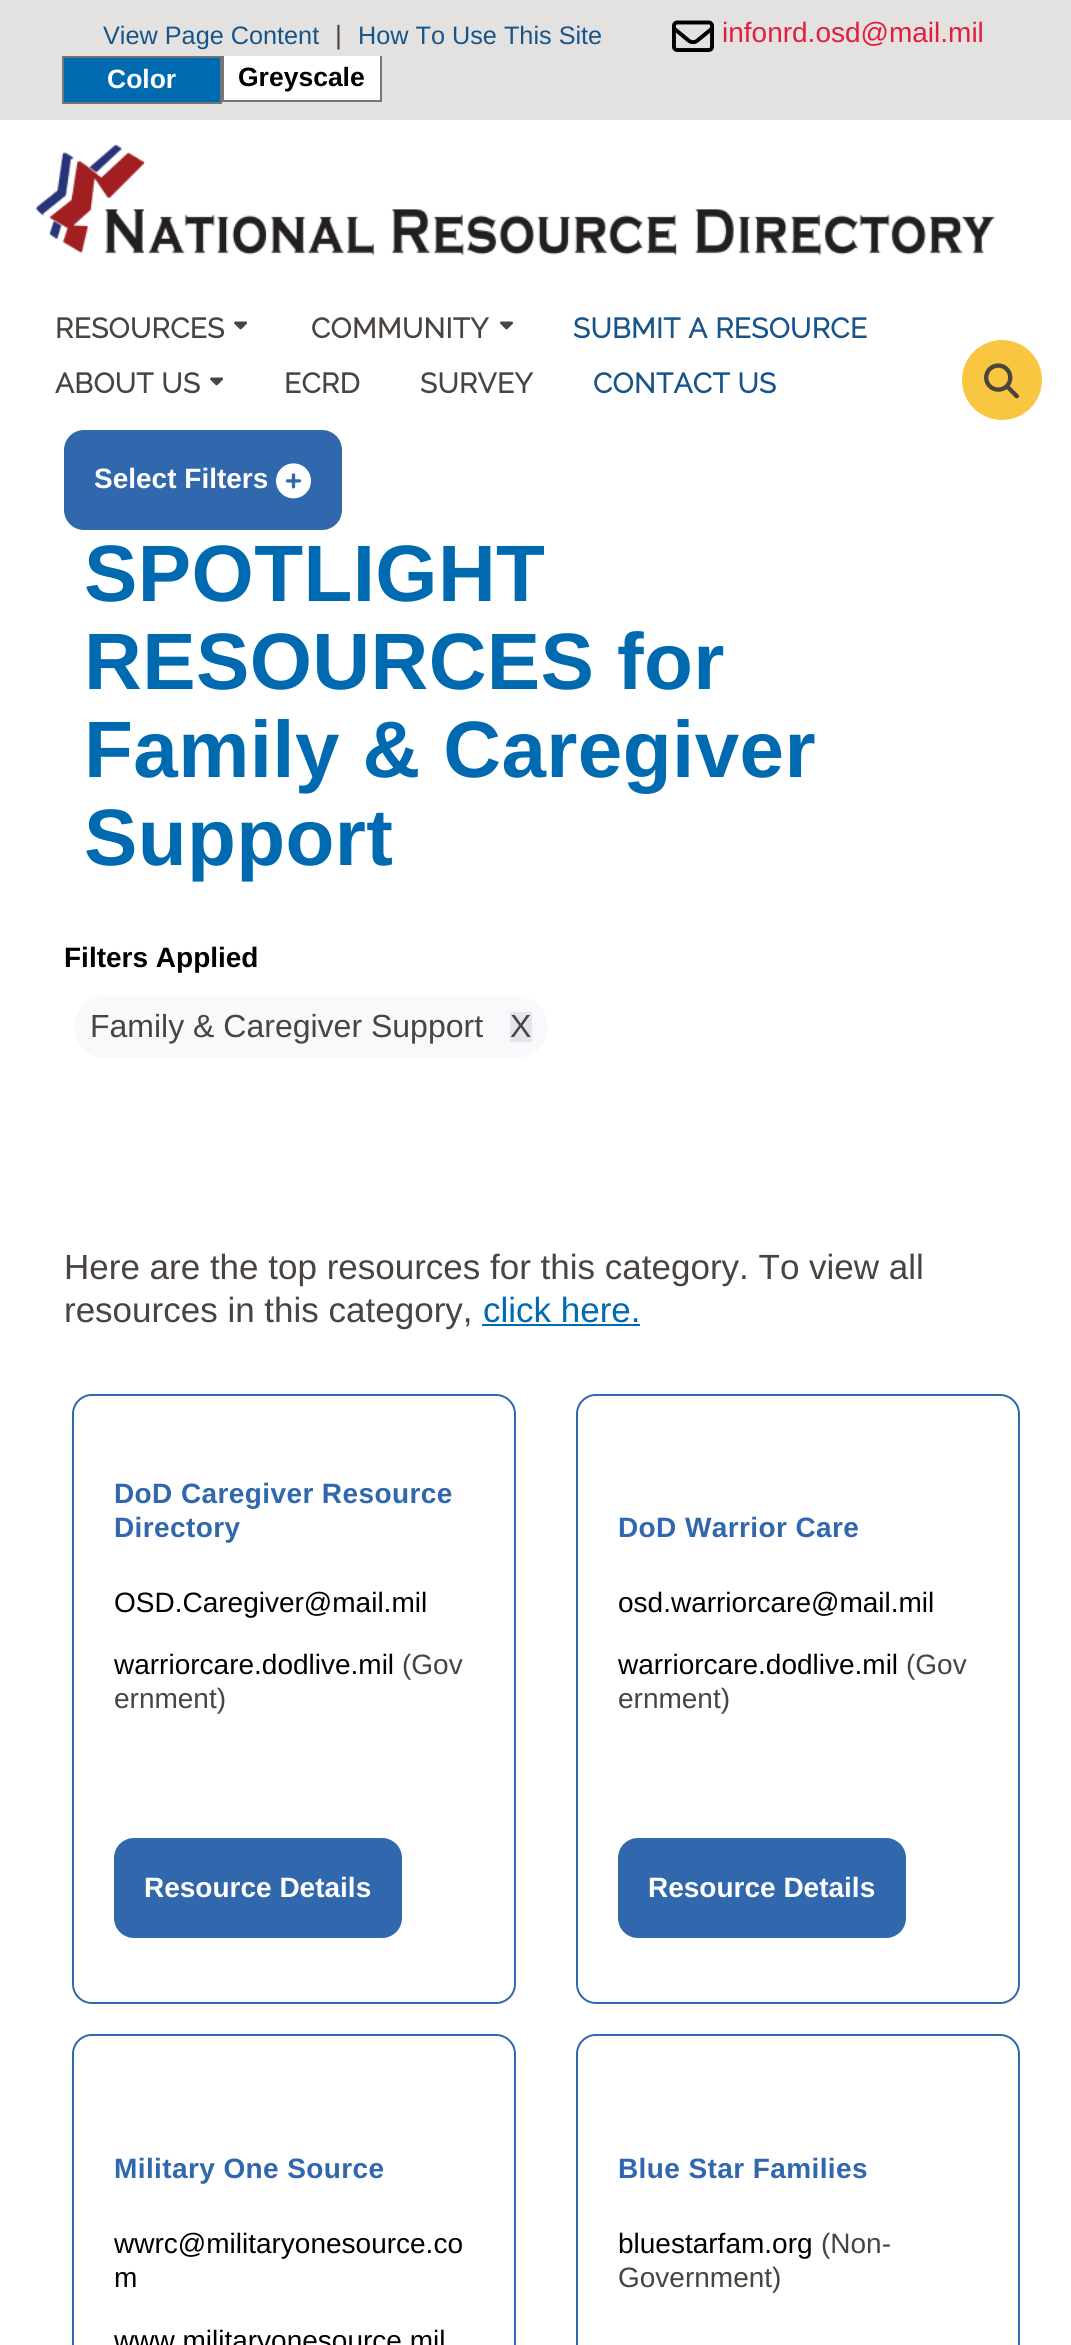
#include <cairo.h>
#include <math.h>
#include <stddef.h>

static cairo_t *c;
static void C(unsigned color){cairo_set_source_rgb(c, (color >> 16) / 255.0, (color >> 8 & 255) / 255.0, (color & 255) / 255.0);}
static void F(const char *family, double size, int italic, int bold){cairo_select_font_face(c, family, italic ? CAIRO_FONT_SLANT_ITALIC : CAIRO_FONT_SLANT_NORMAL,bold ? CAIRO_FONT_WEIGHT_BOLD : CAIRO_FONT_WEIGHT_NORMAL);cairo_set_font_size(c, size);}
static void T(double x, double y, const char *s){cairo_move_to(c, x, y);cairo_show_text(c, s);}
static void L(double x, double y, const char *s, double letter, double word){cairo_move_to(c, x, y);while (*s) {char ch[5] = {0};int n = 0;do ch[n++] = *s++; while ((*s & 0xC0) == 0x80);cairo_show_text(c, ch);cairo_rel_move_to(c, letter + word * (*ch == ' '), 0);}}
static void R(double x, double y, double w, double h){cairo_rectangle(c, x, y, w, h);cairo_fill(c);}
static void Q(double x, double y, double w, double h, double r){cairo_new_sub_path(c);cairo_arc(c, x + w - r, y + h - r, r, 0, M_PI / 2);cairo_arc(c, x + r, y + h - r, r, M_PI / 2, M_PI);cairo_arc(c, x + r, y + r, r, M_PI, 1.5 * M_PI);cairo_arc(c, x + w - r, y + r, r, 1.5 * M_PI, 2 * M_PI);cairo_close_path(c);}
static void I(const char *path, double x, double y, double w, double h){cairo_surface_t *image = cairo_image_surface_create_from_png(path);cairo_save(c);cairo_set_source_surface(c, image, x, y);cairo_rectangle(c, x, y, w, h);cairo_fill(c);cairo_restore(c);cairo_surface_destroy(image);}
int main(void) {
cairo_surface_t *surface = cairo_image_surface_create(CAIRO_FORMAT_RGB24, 1071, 2345);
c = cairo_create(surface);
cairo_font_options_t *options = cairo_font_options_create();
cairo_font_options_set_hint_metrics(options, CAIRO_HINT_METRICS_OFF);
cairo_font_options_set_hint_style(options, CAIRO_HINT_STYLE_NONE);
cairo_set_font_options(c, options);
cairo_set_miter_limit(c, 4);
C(0xffffff);
cairo_paint(c);
C(0xe4e2e0);
R(0,0,1071,120);
F("Liberation Sans",25.25,0,0);
C(0x175489);
T(103,44,"View Page Content");
F("Liberation Sans",26.5,0,0);
C(0x494440);
T(335,44,"|");
F("Liberation Sans",25.25,0,0);
C(0x175489);
T(358,44,"How To Use This Site");
I("1.png",672,20,42,32);
F("Liberation Sans",28,0,0);
C(0xe41d3d);
T(722,42,"infonrd.osd@mail.mil");
C(0x006ab0);
cairo_rectangle(c,63,57,158,46);
cairo_fill_preserve(c);
C(0x757575);
cairo_stroke(c);
F("Liberation Sans",26.5,0,1);
C(0xffffff);
T(107,88,"Color");
R(224,56,156,44);
C(0x757575);
R(380,56,2,46);
R(222,100,160,2);
R(222,56,2,46);
C(0x000000);
T(238,86,"Greyscale");
I("2.png",35,144,960,112);
F("Raleway",28,0,1);
C(0x494440);
L(55,338,"RESOURCES",.4,0);
I("3.png",234,321,14,9);
L(311,338,"COMMUNITY",.4,0);
I("3.png",500,321,14,9);
C(0x175489);
L(573,338,"SUBMIT A RESOURCE",.4,0);
C(0x494440);
L(55,393,"ABOUT US",.4,0);
I("3.png",210,377,14,9);
L(284,393,"ECRD",.4,0);
L(420,393,"SURVEY",.4,0);
C(0x175489);
L(593,393,"CONTACT US",.4,0);
C(0xf9c642);
cairo_new_path(c);
cairo_arc(c,1002,380,40,0,2 * M_PI);
cairo_fill(c);
I("4.png",984,363,35,36);
C(0x3167ac);
Q(64,430,278,100,20);
cairo_fill(c);
F("Liberation Sans",28,0,1);
C(0xffffff);
T(94,488,"Select Filters");
I("5.png",276,463,35,36);
F("Liberation Sans",80,0,1);
C(0x006ab0);
L(84,601,"SPOTLIGHT",.4,0);
L(84,689,"RESOURCES for",.4,0);
L(84,777,"Family & Caregiver",.4,0);
L(84,865,"Support",.4,0);
F("Liberation Sans",28,0,1);
C(0x000000);
T(64,967,"Filters Applied");
C(0xf8f9fa);
Q(74,996,474,62,31);
cairo_fill(c);
F("Liberation Sans",32,0,0);
C(0x494440);
T(90,1037,"Family & Caregiver Support");
C(0xe2e6ea);
R(510,1012,22,30);
C(0x494440);
T(510,1037,"X");
F("Liberation Sans",35,0,0);
T(64,1279,"Here are the top resources for this category. To view all");
T(64,1322,"resources in this category,");
C(0x006ab0);
T(483,1322,"click here.");
R(482,1324,158,2);
Q(73,1395,442,608,19);
C(0x3167ac);
cairo_stroke(c);
C(0xffffff);
Q(74,1396,440,150,20);
cairo_fill(c);
F("Liberation Sans",28,0,1);
C(0x3167ac);
L(114,1503,"DoD Caregiver Resource",.4,0);
L(114,1537,"Directory",.4,0);
F("Liberation Sans",28,0,0);
C(0x000000);
T(114,1612,"OSD.Caregiver@mail.mil");
T(114,1674,"warriorcare.dodlive.mil");
C(0x494440);
T(402,1674,"(Gov");
T(114,1708,"ernment)");
C(0xffffff);
Q(74,1784,440,218,20);
cairo_fill(c);
C(0x3167ac);
Q(114,1838,288,100,20);
cairo_fill(c);
F("Liberation Sans",28,0,1);
C(0xffffff);
T(144,1897,"Resource Details");
Q(577,1395,442,608,19);
C(0x3167ac);
cairo_stroke(c);
C(0xffffff);
Q(578,1396,440,150,20);
cairo_fill(c);
C(0x3167ac);
L(618,1537,"DoD Warrior Care",.4,0);
F("Liberation Sans",28,0,0);
C(0x000000);
T(618,1612,"osd.warriorcare@mail.mil");
T(618,1674,"warriorcare.dodlive.mil");
C(0x494440);
T(906,1674,"(Gov");
T(618,1708,"ernment)");
C(0xffffff);
Q(578,1784,440,218,20);
cairo_fill(c);
C(0x3167ac);
Q(618,1838,288,100,20);
cairo_fill(c);
F("Liberation Sans",28,0,1);
C(0xffffff);
T(648,1897,"Resource Details");
Q(73,2035,442,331,19);
C(0x3167ac);
cairo_stroke(c);
C(0xffffff);
Q(74,2036,440,150,20);
cairo_fill(c);
C(0x3167ac);
L(114,2178,"Military One Source",.4,0);
F("Liberation Sans",28,0,0);
C(0x000000);
T(114,2253,"wwrc@militaryonesource.co");
T(114,2287,"m");
T(114,2350,"www.militaryonesource.mil");
Q(577,2035,442,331,19);
C(0x3167ac);
cairo_stroke(c);
C(0xffffff);
Q(578,2036,440,150,20);
cairo_fill(c);
F("Liberation Sans",28,0,1);
C(0x3167ac);
L(618,2178,"Blue Star Families",.4,0);
F("Liberation Sans",28,0,0);
C(0x000000);
T(618,2253,"bluestarfam.org");
C(0x494440);
T(821,2253,"(Non-");
T(618,2287,"Government)");
cairo_surface_write_to_png(surface, "o.png");
cairo_font_options_destroy(options);
cairo_destroy(c);
cairo_surface_destroy(surface);
return 0;
}
